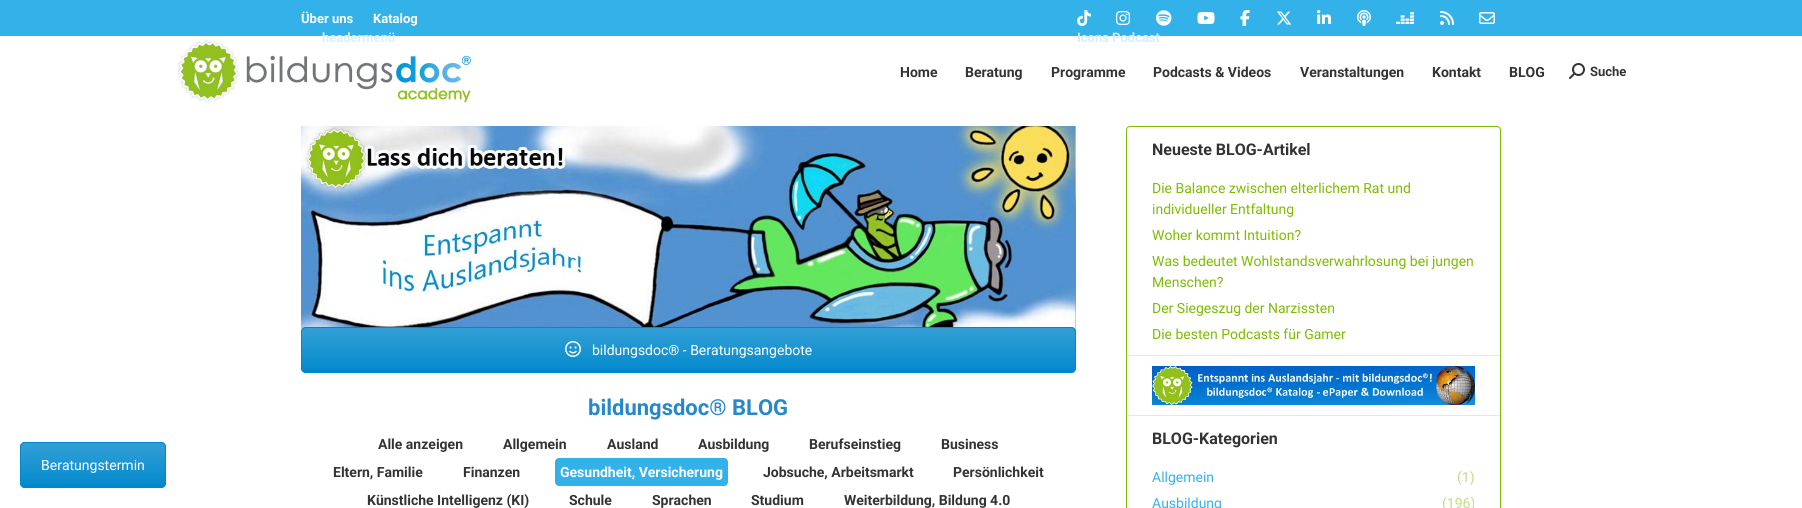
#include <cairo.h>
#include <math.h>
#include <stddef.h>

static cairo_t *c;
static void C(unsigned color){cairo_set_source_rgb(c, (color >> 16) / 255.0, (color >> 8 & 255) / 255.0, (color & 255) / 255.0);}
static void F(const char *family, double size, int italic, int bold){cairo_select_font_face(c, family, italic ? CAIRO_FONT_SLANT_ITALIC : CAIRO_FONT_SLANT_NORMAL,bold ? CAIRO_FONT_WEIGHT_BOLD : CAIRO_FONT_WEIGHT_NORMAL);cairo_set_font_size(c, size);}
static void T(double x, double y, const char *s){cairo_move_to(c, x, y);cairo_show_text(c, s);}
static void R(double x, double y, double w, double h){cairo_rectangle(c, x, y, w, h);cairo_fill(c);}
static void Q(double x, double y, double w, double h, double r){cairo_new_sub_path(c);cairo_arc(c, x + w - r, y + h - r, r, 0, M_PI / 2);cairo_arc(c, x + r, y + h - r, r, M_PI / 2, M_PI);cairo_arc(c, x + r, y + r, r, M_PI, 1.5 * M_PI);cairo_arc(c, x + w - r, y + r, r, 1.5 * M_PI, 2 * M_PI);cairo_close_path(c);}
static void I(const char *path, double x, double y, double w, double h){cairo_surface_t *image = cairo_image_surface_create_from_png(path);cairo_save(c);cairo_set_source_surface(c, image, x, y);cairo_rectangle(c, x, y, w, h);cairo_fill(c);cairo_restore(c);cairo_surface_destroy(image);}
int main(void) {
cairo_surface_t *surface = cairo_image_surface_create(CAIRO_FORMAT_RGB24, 1802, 508);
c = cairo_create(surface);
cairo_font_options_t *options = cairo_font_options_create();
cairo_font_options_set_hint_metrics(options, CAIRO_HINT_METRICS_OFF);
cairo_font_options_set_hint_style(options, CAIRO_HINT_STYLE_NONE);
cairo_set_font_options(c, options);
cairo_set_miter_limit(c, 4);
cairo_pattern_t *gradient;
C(0xffffff);
cairo_paint(c);
C(0x0088cc);
Q(20,442,146,46,5);
cairo_fill(c);
cairo_save(c);
Q(20,442,146,46,5);
cairo_clip(c);
gradient = cairo_pattern_create_linear(93,443,93,487);
cairo_pattern_add_color_stop_rgba(gradient,0,1,1,1,.2);
cairo_pattern_add_color_stop_rgba(gradient,1,1,1,1,.01);
cairo_set_source(c,gradient);
cairo_pattern_destroy(gradient);
R(20,443,146,41);
cairo_restore(c);
Q(20.5,442.5,145,45,4.5);
cairo_set_line_width(c,1);
cairo_stroke(c);
F("Roboto",14,0,0);
C(0xffffff);
T(41,470,"Beratungstermin");
C(0x33b2e9);
R(0,0,1802,36);
F("Roboto",13,0,1);
C(0xffffff);
T(301,23,"Über uns");
T(373,23,"Katalog");
C(0xd9f0fb);
T(322,42,"headermenü");
I("1.png",1077,10,14,16);
I("2.png",1116,11,14,14);
I("3.png",1156,10,16,16);
I("4.png",1197,12,18,12);
I("5.png",1240,10,10,16);
I("6.png",1277,11,15,14);
I("7.png",1317,10,14,14);
I("8.png",1357,10,14,16);
I("9.png",1396,12,18,12);
I("10.png",1440,11,14,14);
I("11.png",1479,12,16,12);
C(0xd3eefa);
T(1077,42,"Icons Podcast");
I("12.png",177,40,294,63);
F("Roboto",14,0,1);
C(0x333333);
T(900,77,"Home");
T(965,77,"Beratung");
T(1051,77,"Programme");
T(1153,77,"Podcasts & Videos");
T(1300,77,"Veranstaltungen");
T(1432,77,"Kontakt");
T(1509,77,"BLOG");
I("13.png",1569,63,16,16);
F("Roboto",13,0,1);
T(1590,76,"Suche");
I("14.png",301,126,775,206);
C(0x0088cc);
Q(301,327,775,46,5);
cairo_fill(c);
cairo_save(c);
Q(301,327,775,46,5);
cairo_clip(c);
gradient = cairo_pattern_create_linear(689,328,689,372);
cairo_pattern_add_color_stop_rgba(gradient,0,1,1,1,.2);
cairo_pattern_add_color_stop_rgba(gradient,1,1,1,1,.01);
cairo_set_source(c,gradient);
cairo_pattern_destroy(gradient);
R(301,328,775,41);
cairo_restore(c);
Q(301.5,327.5,774,45,4.5);
cairo_stroke(c);
I("15.png",565,341,16,16);
F("Roboto",14,0,0);
C(0xffffff);
T(592,355,"bildungsdoc® - Beratungsangebote");
F("Roboto",22,0,1);
C(0x2787cb);
T(588,415,"bildungsdoc® BLOG");
F("Roboto",14,0,1);
C(0x333333);
T(378,449,"Alle anzeigen");
T(503,449,"Allgemein");
T(607,449,"Ausland");
T(698,449,"Ausbildung");
T(809,449,"Berufseinstieg");
T(941,449,"Business");
T(333,477,"Eltern, Familie");
T(463,477,"Finanzen");
C(0x33b2e9);
Q(555,458,173,28,4);
cairo_fill(c);
C(0xffffff);
T(560,477,"Gesundheit, Versicherung");
C(0x333333);
T(763,477,"Jobsuche, Arbeitsmarkt");
T(953,477,"Persönlichkeit");
T(367,505,"Künstliche Intelligenz (KI)");
T(569,505,"Schule");
T(652,505,"Sprachen");
T(751,505,"Studium");
T(844,505,"Weiterbildung, Bildung 4.0");
Q(1126.5,126.5,374,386,3.5);
C(0x7dbc00);
cairo_stroke(c);
F("Roboto",16,0,1);
C(0x333333);
T(1152,155,"Neueste BLOG-Artikel");
F("Roboto",14,0,0);
C(0x7dbc00);
T(1152,193,"Die Balance zwischen elterlichem Rat und");
T(1152,214,"individueller Entfaltung");
T(1152,240,"Woher kommt Intuition?");
T(1152,266,"Was bedeutet Wohlstandsverwahrlosung bei jungen");
T(1152,287,"Menschen?");
T(1152,313,"Der Siegeszug der Narzissten");
T(1152,339,"Die besten Podcasts für Gamer");
C(0xe7e7e7);
R(1127,355,373,1);
I("16.png",1152,366,323,39);
R(1127,415,373,1);
F("Roboto",16,0,1);
C(0x333333);
T(1152,444,"BLOG-Kategorien");
F("Roboto",14,0,0);
C(0x33b2e9);
T(1152,482,"Allgemein");
C(0xbede80);
T(1457,482,"(1)");
C(0x33b2e9);
T(1152,508,"Ausbildung");
C(0xbede80);
T(1442,508,"(196)");
cairo_surface_write_to_png(surface, "o.png");
cairo_font_options_destroy(options);
cairo_destroy(c);
cairo_surface_destroy(surface);
return 0;
}
